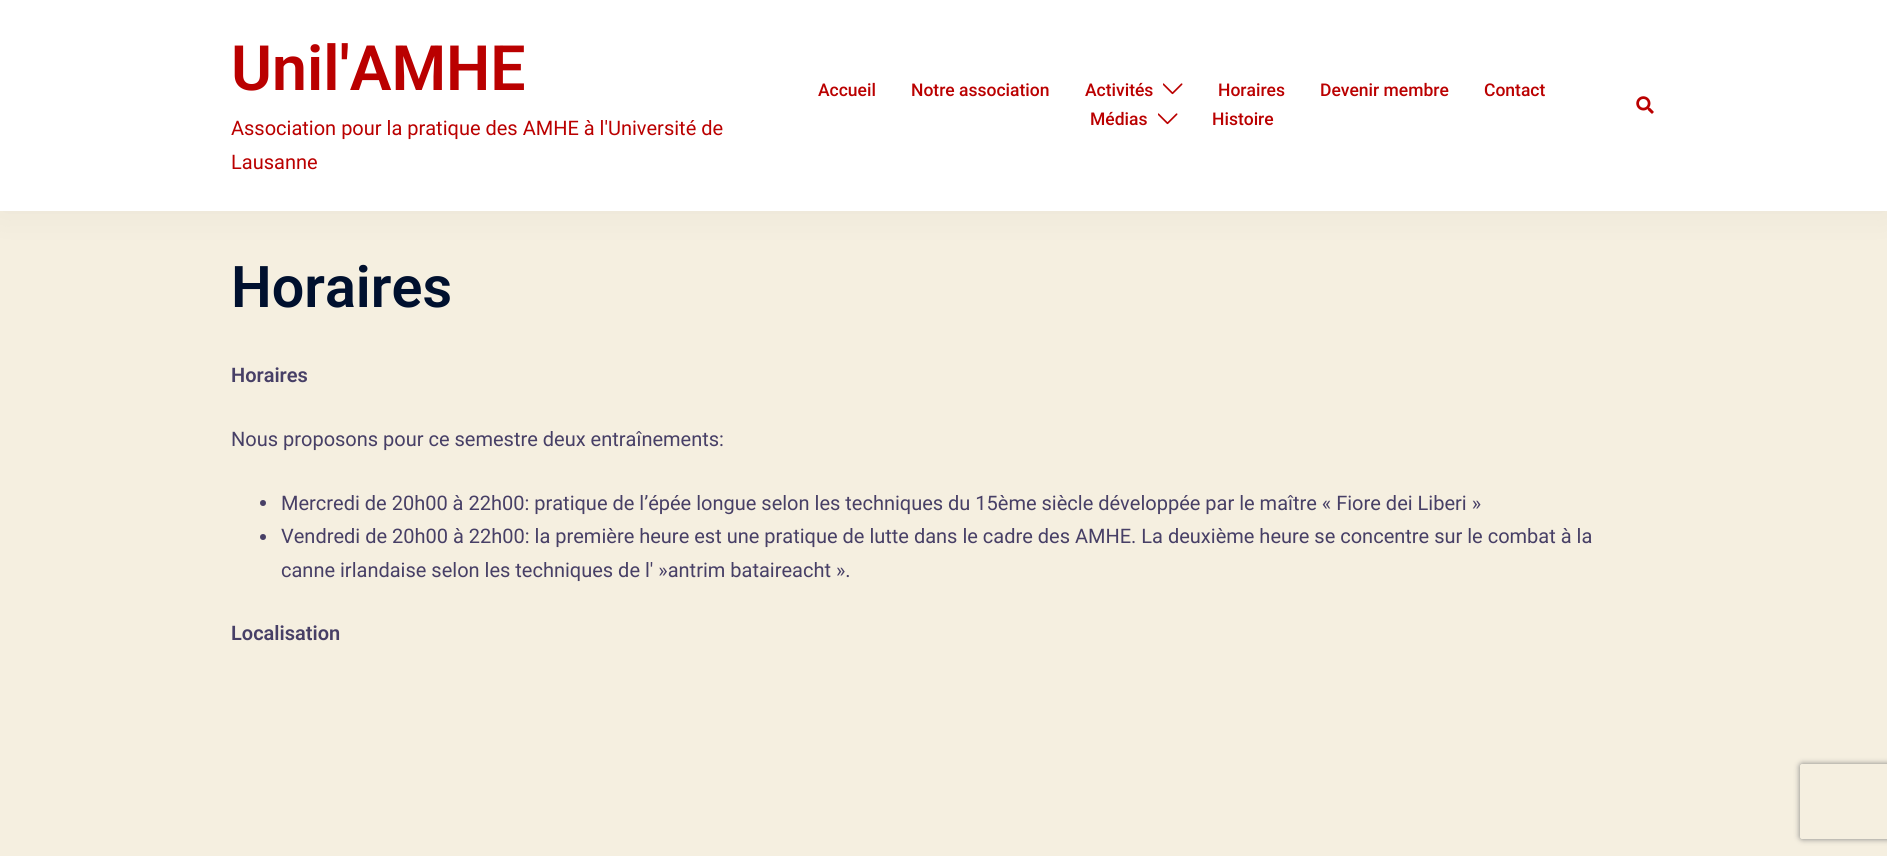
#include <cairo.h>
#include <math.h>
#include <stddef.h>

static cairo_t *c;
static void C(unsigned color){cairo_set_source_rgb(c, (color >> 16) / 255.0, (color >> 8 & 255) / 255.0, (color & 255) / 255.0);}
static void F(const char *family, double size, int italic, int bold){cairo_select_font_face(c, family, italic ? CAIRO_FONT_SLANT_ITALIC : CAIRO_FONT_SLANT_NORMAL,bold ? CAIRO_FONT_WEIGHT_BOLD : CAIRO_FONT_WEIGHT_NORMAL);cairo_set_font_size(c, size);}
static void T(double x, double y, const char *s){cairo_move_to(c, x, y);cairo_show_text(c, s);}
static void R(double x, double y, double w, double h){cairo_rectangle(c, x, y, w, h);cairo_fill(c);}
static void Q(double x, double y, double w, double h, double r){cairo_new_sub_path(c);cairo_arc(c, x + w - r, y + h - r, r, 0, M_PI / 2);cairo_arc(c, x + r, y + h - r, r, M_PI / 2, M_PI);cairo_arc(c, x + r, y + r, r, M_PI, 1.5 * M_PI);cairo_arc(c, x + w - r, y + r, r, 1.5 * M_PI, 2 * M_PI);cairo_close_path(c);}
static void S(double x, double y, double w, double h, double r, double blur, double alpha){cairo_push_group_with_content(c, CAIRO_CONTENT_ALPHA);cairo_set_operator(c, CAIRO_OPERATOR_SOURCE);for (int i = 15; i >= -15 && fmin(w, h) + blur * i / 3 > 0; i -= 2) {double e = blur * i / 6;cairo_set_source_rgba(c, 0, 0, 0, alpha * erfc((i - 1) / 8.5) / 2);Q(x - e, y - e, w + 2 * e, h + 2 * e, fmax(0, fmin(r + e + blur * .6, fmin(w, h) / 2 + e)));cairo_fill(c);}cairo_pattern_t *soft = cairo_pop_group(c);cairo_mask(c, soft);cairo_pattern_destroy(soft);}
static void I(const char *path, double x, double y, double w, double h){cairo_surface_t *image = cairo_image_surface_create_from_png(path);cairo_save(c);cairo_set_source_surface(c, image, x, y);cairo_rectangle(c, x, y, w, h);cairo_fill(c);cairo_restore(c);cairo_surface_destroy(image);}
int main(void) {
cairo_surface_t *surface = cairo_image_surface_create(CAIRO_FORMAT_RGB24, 1887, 856);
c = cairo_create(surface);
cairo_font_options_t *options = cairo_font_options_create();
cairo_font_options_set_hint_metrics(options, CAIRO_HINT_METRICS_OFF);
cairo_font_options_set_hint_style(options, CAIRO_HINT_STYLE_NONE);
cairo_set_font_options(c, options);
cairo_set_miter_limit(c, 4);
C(0xf5efe0);
cairo_paint(c);
C(0x000000);
S(0,0,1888,211,0,19,.05);
C(0xffffff);
R(0,0,1887,211);
F("Roboto SemiBold",62.5,0,0);
C(0xba0000);
T(231,90,"Unil'AMHE");
F("Roboto",20,0,0);
T(231,135,"Association pour la pratique des AMHE à l'Université de");
T(231,169,"Lausanne");
F("Roboto Medium",17.5,0,0);
T(818,96,"Accueil");
T(911,96,"Notre association");
T(1085,96,"Activités");
I("1.png",1163,83,20,12);
T(1218,96,"Horaires");
T(1320,96,"Devenir membre");
T(1484,96,"Contact");
T(1090,125,"Médias");
I("1.png",1158,113,20,12);
T(1212,125,"Histoire");
I("2.png",1636,96,18,18);
F("Roboto SemiBold",57.5,0,0);
C(0x00102e);
T(231,307,"Horaires");
F("Roboto SemiBold",20,0,0);
C(0x473f66);
T(231,382,"Horaires");
F("Roboto",20,0,0);
T(231,446,"Nous proposons pour ce semestre deux entraînements:");
cairo_new_path(c);
cairo_arc(c,263,503,3,0,2 * M_PI);
cairo_fill(c);
T(281,510,"Mercredi de 20h00 à 22h00: pratique de l’épée longue selon les techniques du 15ème siècle développée par le maître « Fiore dei Liberi »");
cairo_new_path(c);
cairo_arc(c,263,537,3,0,2 * M_PI);
cairo_fill(c);
T(281,543,"Vendredi de 20h00 à 22h00: la première heure est une pratique de lutte dans le cadre des AMHE. La deuxième heure se concentre sur le combat à la");
T(281,577,"canne irlandaise selon les techniques de l' »antrim bataireacht ».");
F("Roboto SemiBold",20,0,0);
T(231,640,"Localisation");
cairo_save(c);
cairo_set_fill_rule(c,CAIRO_FILL_RULE_EVEN_ODD);
cairo_new_path(c);
cairo_move_to(c,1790,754);
cairo_line_to(c,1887,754);
cairo_line_to(c,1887,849);
cairo_line_to(c,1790,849);
cairo_close_path(c);
cairo_move_to(c,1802.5,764);
cairo_line_to(c,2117.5,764);
cairo_curve_to(c,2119,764,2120,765,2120,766.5);
cairo_line_to(c,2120,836.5);
cairo_curve_to(c,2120,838,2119,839,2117.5,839);
cairo_line_to(c,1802.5,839);
cairo_curve_to(c,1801,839,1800,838,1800,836.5);
cairo_line_to(c,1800,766.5);
cairo_curve_to(c,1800,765,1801,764,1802.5,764);
cairo_close_path(c);
cairo_clip(c);
C(0x808080);
S(1800,764,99,75,2.5,3,1);
cairo_restore(c);
cairo_surface_write_to_png(surface, "o.png");
cairo_font_options_destroy(options);
cairo_destroy(c);
cairo_surface_destroy(surface);
return 0;
}
